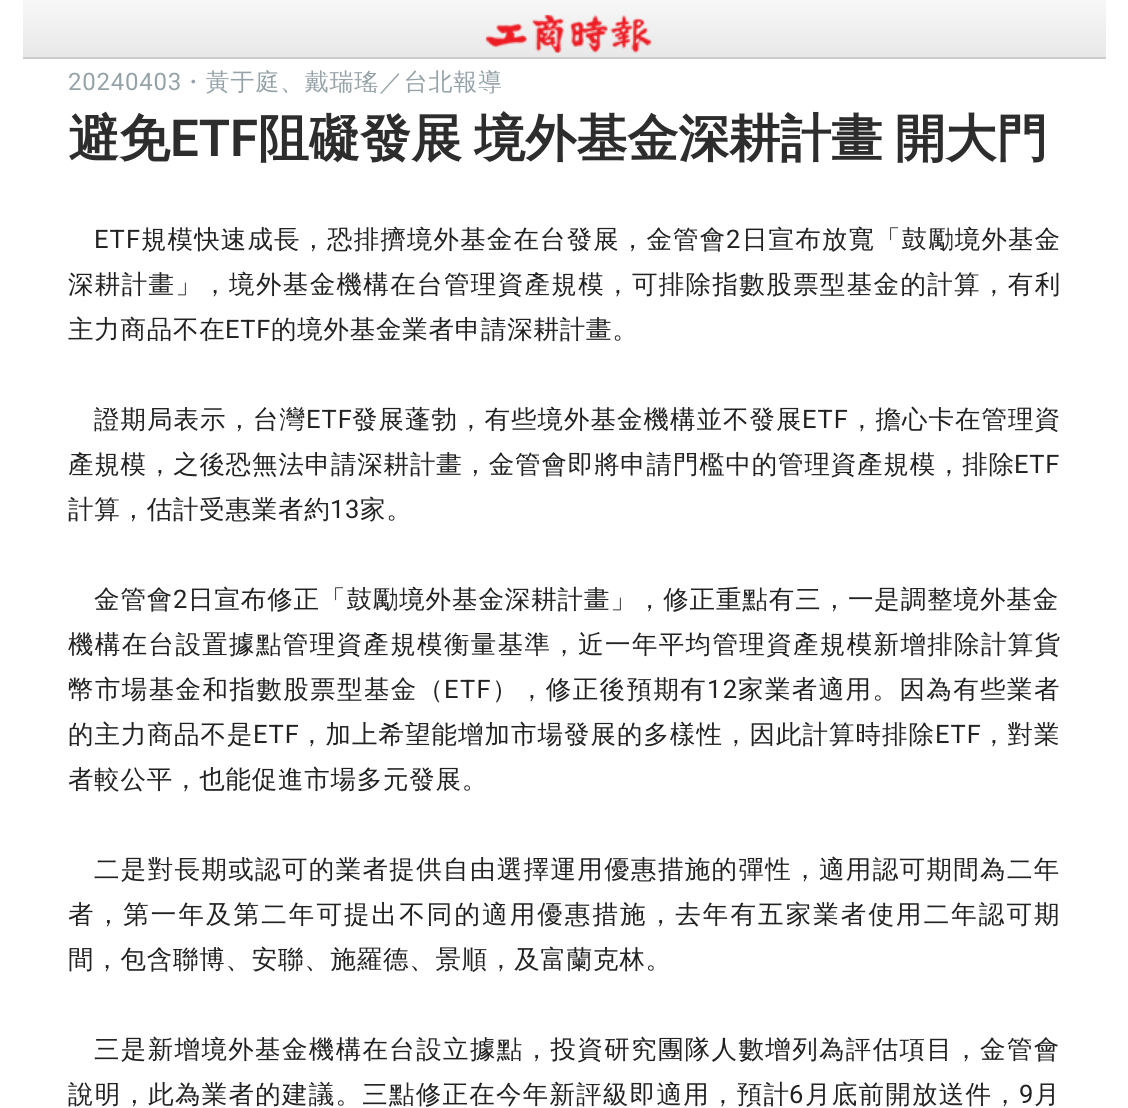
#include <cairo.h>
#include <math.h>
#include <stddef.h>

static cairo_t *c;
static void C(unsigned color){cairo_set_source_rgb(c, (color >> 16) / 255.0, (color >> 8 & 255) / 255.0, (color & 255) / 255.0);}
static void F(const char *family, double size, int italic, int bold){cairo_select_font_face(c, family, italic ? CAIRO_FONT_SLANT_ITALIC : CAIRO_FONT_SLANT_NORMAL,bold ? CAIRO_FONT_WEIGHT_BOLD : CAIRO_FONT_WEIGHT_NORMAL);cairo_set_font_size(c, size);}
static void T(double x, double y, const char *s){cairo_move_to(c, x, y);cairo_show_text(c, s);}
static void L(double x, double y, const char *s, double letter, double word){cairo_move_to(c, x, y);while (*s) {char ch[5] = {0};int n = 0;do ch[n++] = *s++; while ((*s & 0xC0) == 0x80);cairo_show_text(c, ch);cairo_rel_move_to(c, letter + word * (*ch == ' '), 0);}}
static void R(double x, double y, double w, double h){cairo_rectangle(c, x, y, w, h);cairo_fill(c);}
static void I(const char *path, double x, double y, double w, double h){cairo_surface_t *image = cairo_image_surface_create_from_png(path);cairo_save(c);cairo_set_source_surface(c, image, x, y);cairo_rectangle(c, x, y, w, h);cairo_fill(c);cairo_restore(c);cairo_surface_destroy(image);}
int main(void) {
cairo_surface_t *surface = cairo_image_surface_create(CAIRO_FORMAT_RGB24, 1128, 1108);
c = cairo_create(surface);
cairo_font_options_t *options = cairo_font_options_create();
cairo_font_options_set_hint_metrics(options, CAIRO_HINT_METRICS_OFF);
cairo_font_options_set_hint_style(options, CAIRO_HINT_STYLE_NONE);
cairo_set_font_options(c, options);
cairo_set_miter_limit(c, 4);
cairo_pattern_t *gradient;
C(0xffffff);
cairo_paint(c);
gradient = cairo_pattern_create_linear(564,0,564,57);
cairo_pattern_add_color_stop_rgba(gradient,0,0.969,0.969,0.969,1);
cairo_pattern_add_color_stop_rgba(gradient,1,0.91,0.91,0.91,1);
cairo_set_source(c,gradient);
cairo_pattern_destroy(gradient);
R(23,0,1083,57);
C(0xcccccc);
R(23,57,1083,2);
I("1.png",485,14,167,39);
F("Roboto",24,0,0);
C(0x95a3a9);
L(68,90,"20240403",.75,0);
F("WenQuanYi Zen Hei Medium",24,0,0);
L(181,90,"・黃于庭、戴瑞瑤／台北報導",.75,0);
F("WenQuanYi Zen Hei",51,0,1);
C(0x2d2d2d);
T(68,156,"避免");
F("Roboto SemiBold",51,0,0);
T(170,156,"ETF");
F("WenQuanYi Zen Hei",51,0,1);
L(258,156,"阻礙發展 境外基金深耕計畫 開大門",0,-3);
F("Roboto",25.5,0,0);
C(0x222222);
L(94,248,"ETF",1.1,0);
F("WenQuanYi Zen Hei Medium",25.5,0,0);
L(141,248,"規模快速成長，恐排擠境外基金在台發展，金管會",1.1,0);
F("Roboto",25.5,0,0);
L(726,248,"2",1.1,0);
F("WenQuanYi Zen Hei Medium",25.5,0,0);
L(742,248,"日宣布放寬「鼓勵境外基金",1.1,0);
L(68,293,"深耕計畫」，境外基金機構在台管理資產規模，可排除指數股票型基金的計算，有利",1.35,0);
L(68,338,"主力商品不在",.75,0);
F("Roboto",25.5,0,0);
L(225,338,"ETF",.75,0);
F("WenQuanYi Zen Hei Medium",25.5,0,0);
L(271,338,"的境外基金業者申請深耕計畫。",.75,0);
L(94,428,"證期局表示，台灣",1,0);
F("Roboto",25.5,0,0);
L(306,428,"ETF",1,0);
F("WenQuanYi Zen Hei Medium",25.5,0,0);
L(352,428,"發展蓬勃，有些境外基金機構並不發展",1,0);
F("Roboto",25.5,0,0);
L(802,428,"ETF",1,0);
F("WenQuanYi Zen Hei Medium",25.5,0,0);
L(849,428,"，擔心卡在管理資",1,0);
L(68,473,"產規模，之後恐無法申請深耕計畫，金管會即將申請門檻中的管理資產規模，排除",.8,0);
F("Roboto",25.5,0,0);
L(1014,473,"ETF",.8,0);
F("WenQuanYi Zen Hei Medium",25.5,0,0);
L(68,518,"計算，估計受惠業者約",.75,0);
F("Roboto",25.5,0,0);
L(330,518,"13",.75,0);
F("WenQuanYi Zen Hei Medium",25.5,0,0);
L(360,518,"家。",.75,0);
L(94,608,"金管會",.9,0);
F("Roboto",25.5,0,0);
L(173,608,"2",.9,0);
F("WenQuanYi Zen Hei Medium",25.5,0,0);
L(188,608,"日宣布修正「鼓勵境外基金深耕計畫」，修正重點有三，一是調整境外基金",.9,0);
L(68,653,"機構在台設置據點管理資產規模衡量基準，近一年平均管理資產規模新增排除計算貨",1.35,0);
L(68,698,"幣市場基金和指數股票型基金（",1.4,0);
F("Roboto",25.5,0,0);
L(444,698,"ETF",1.4,0);
F("WenQuanYi Zen Hei Medium",25.5,0,0);
L(492,698,"），修正後預期有",1.4,0);
F("Roboto",25.5,0,0);
L(707,698,"12",1.4,0);
F("WenQuanYi Zen Hei Medium",25.5,0,0);
L(738,698,"家業者適用。因為有些業者",1.4,0);
L(68,743,"的主力商品不是",1,0);
F("Roboto",25.5,0,0);
L(253,743,"ETF",1,0);
F("WenQuanYi Zen Hei Medium",25.5,0,0);
L(299,743,"，加上希望能增加市場發展的多樣性，因此計算時排除",1,0);
F("Roboto",25.5,0,0);
L(935,743,"ETF",1,0);
F("WenQuanYi Zen Hei Medium",25.5,0,0);
L(981,743,"，對業",1,0);
L(68,788,"者較公平，也能促進市場多元發展。",.75,0);
L(94,878,"二是對長期或認可的業者提供自由選擇運用優惠措施的彈性，適用認可期間為二年",1.35,0);
L(68,923,"者，第一年及第二年可提出不同的適用優惠措施，去年有五家業者使用二年認可期",2.1,0);
L(68,968,"間，包含聯博、安聯、施羅德、景順，及富蘭克林。",.75,0);
L(94,1058,"三是新增境外基金機構在台設立據點，投資研究團隊人數增列為評估項目，金管會",1.35,0);
L(68,1103,"說明，此為業者的建議。三點修正在今年新評級即適用，預計",1.25,0);
F("Roboto",25.5,0,0);
L(789,1103,"6",1.25,0);
F("WenQuanYi Zen Hei Medium",25.5,0,0);
L(805,1103,"月底前開放送件，",1.25,0);
F("Roboto",25.5,0,0);
L(1019,1103,"9",1.25,0);
F("WenQuanYi Zen Hei Medium",25.5,0,0);
L(1034,1103,"月",1.25,0);
cairo_surface_write_to_png(surface, "o.png");
cairo_font_options_destroy(options);
cairo_destroy(c);
cairo_surface_destroy(surface);
return 0;
}
